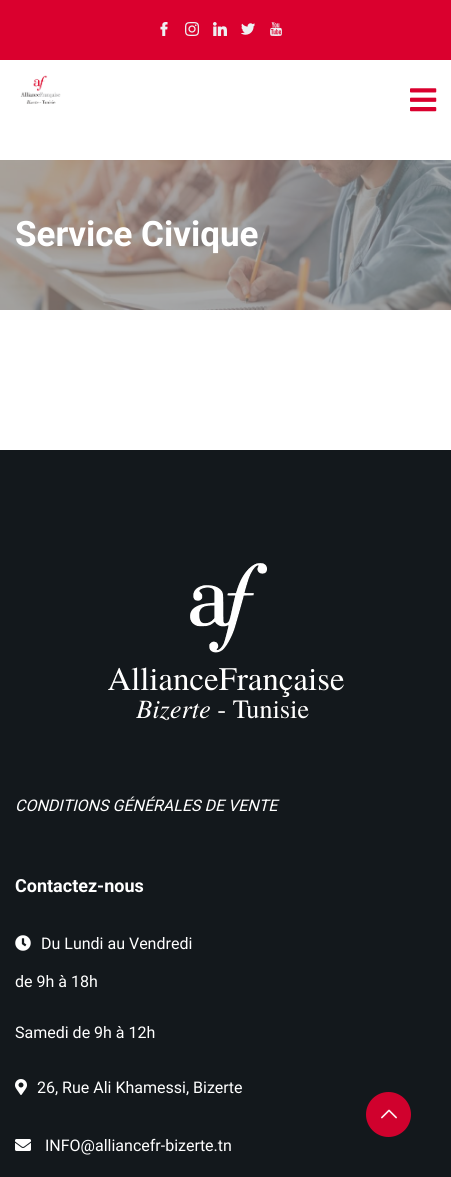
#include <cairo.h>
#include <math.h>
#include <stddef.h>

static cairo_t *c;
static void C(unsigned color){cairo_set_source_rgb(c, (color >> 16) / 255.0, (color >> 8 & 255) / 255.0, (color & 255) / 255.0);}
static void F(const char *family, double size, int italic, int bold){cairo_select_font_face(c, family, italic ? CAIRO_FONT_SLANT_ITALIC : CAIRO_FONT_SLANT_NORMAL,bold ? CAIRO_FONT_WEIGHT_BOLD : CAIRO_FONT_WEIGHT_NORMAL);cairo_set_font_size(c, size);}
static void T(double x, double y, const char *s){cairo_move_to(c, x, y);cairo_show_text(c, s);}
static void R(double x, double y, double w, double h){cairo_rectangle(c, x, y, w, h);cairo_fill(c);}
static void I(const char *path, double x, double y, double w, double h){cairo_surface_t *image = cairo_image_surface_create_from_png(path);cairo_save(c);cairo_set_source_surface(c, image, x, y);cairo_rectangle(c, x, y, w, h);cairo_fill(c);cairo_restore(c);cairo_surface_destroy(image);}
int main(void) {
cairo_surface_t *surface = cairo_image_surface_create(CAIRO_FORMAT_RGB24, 451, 1177);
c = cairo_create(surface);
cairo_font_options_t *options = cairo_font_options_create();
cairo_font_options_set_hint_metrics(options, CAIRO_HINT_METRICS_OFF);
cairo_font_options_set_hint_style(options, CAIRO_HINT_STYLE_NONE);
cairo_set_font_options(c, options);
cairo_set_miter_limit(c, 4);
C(0xffffff);
cairo_paint(c);
C(0xda002e);
R(0,0,451,60);
I("1.png",160,22,8,14);
I("2.png",185,22,15,14);
I("3.png",213,22,14,14);
I("4.png",241,23,14,12);
I("5.png",270,22,12,14);
I("6.png",20,75,41,29);
I("7.png",410,88,27,24);
I("8.png",0,160,451,150);
F("Roboto",35,0,1);
C(0xffffff);
T(15,246,"Service Civique");
C(0x13181c);
R(0,450,451,727);
I("9.png",108,563,236,158);
F("Roboto",16,1,0);
C(0xffffff);
T(15,811,"CONDITIONS GÉNÉRALES DE VENTE");
F("Roboto",18,0,1);
T(15,892,"Contactez-nous");
I("10.png",15,935,16,16);
F("Roboto",16,0,0);
T(41,949,"Du Lundi au Vendredi");
T(15,987,"de 9h à 18h");
T(15,1038,"Samedi de 9h à 12h");
I("11.png",15,1079,12,16);
T(37,1093,"26, Rue Ali Khamessi, Bizerte");
I("12.png",15,1139,16,12);
T(45,1151,"INFO@alliancefr-bizerte.tn");
C(0xd0012d);
cairo_new_path(c);
cairo_arc(c,388.5,1114.5,22.5,0,2 * M_PI);
cairo_fill(c);
I("13.png",381,1109,16,10);
cairo_surface_write_to_png(surface, "o.png");
cairo_font_options_destroy(options);
cairo_destroy(c);
cairo_surface_destroy(surface);
return 0;
}
